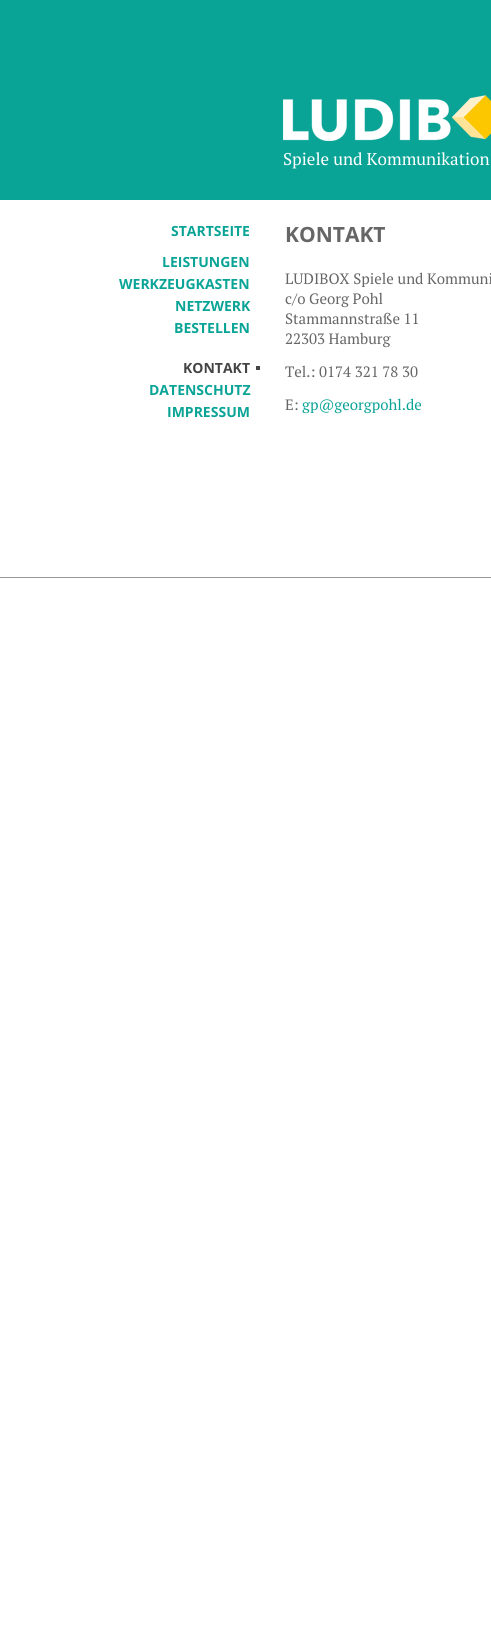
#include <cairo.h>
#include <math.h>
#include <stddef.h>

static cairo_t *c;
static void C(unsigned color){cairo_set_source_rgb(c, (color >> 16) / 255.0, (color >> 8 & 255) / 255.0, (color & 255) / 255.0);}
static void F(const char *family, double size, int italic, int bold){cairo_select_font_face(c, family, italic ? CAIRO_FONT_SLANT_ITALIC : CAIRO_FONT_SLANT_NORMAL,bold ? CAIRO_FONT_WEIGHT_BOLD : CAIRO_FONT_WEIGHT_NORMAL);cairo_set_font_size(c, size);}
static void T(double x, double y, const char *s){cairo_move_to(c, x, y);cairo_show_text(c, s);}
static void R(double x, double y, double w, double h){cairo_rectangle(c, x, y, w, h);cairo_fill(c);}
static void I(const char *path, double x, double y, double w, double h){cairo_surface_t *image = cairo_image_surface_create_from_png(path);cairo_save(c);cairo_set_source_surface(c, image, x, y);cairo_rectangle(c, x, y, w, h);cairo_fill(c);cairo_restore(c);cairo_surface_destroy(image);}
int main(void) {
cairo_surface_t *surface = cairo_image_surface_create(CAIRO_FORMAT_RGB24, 491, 1629);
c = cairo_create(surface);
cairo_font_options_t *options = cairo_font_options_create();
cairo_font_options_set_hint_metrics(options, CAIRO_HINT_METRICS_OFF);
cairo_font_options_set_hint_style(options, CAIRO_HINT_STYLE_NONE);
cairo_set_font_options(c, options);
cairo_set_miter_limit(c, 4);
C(0xffffff);
cairo_paint(c);
C(0x0aa497);
R(0,0,491,200);
I("1.png",283,95,208,46);
F("PT Serif",17,0,0);
C(0xffffff);
T(283,165,"Spiele und Kommunikation");
F("Open Sans",14,0,1);
C(0x0aa497);
T(171,236,"STARTSEITE");
T(162,267,"LEISTUNGEN");
T(119,289,"WERKZEUGKASTEN");
T(175,311,"NETZWERK");
T(174,333,"BESTELLEN");
C(0x444444);
R(256,366,4,4);
T(183,373,"KONTAKT");
C(0x0aa497);
T(149,395,"DATENSCHUTZ");
T(167,417,"IMPRESSUM");
F("Open Sans",21,0,1);
C(0x666666);
T(285,242,"KONTAKT");
F("PT Serif",15,0,0);
T(285,284,"LUDIBOX Spiele und Kommuni");
T(285,304,"c/o Georg Pohl");
T(285,324,"Stammannstraße 11");
T(285,344,"22303 Hamburg");
T(285,377,"Tel.: 0174 321 78 30");
T(285,410,"E:");
C(0x0aa497);
T(302,410,"gp@georgpohl.de");
C(0x999999);
R(0,577,491,1);
cairo_surface_write_to_png(surface, "o.png");
cairo_font_options_destroy(options);
cairo_destroy(c);
cairo_surface_destroy(surface);
return 0;
}
